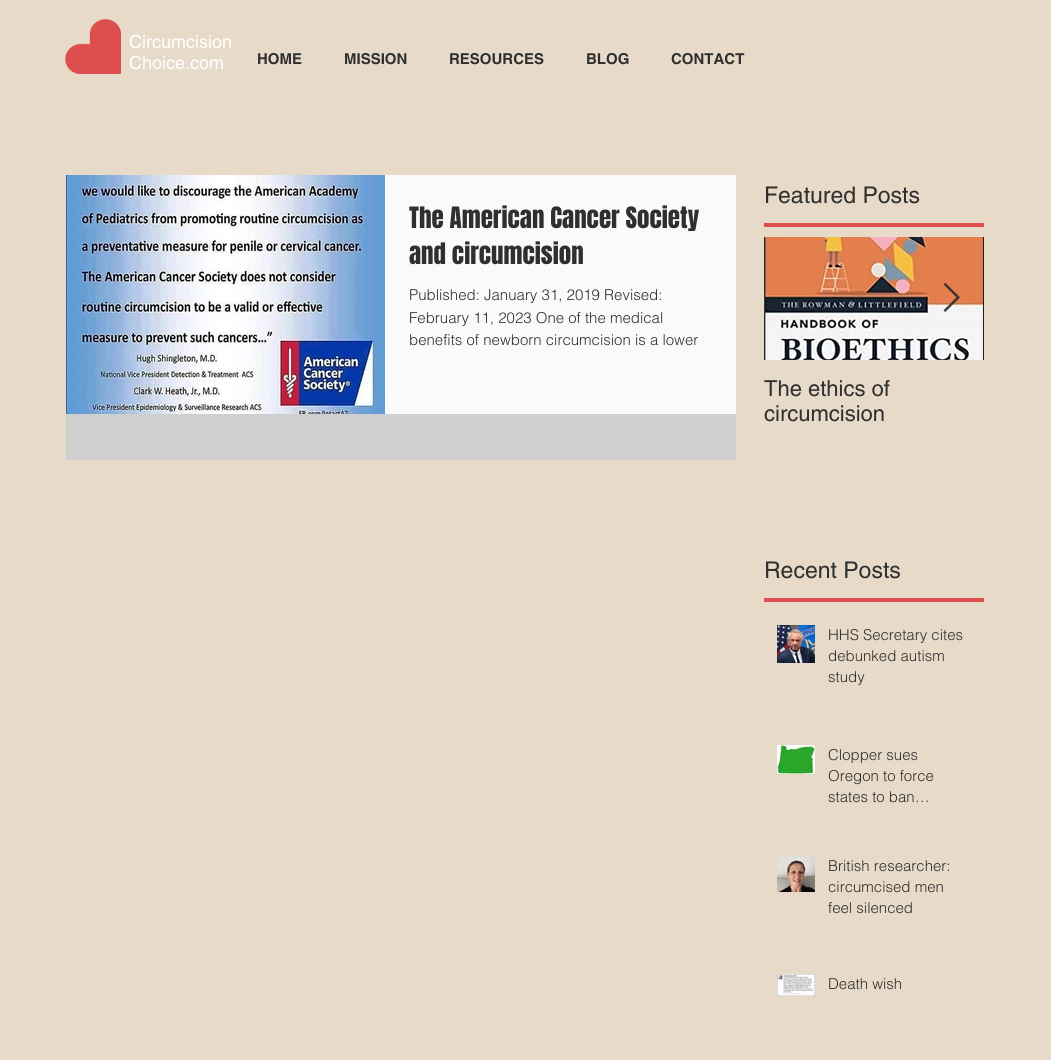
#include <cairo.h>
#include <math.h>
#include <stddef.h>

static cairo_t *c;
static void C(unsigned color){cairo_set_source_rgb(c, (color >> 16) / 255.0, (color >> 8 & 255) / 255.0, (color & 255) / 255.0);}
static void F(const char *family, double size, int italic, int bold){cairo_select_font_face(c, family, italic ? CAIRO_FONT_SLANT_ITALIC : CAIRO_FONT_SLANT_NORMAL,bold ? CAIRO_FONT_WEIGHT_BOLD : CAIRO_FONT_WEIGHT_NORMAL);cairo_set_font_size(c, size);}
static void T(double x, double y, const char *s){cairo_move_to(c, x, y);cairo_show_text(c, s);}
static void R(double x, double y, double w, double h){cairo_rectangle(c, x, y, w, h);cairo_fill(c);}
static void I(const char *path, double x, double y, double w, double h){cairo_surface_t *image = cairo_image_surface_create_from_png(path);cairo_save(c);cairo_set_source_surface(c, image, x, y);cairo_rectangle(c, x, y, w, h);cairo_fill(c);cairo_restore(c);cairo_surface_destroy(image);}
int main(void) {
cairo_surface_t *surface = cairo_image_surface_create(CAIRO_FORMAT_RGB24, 1051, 1060);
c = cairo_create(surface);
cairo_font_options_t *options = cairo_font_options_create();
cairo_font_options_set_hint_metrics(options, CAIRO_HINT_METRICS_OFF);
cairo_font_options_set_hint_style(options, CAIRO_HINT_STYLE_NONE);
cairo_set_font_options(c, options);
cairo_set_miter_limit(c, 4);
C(0xe8dac8);
cairo_paint(c);
I("1.png",65,19,56,55);
F("helvetica",18,0,0);
C(0xffffff);
T(129,48,"Circumcision");
T(129,69,"Choice.com");
F("helvetica",15,0,1);
C(0x2f2f2f);
T(257,64,"HOME");
T(344,64,"MISSION");
T(449,64,"RESOURCES");
T(586,64,"BLOG");
T(671,64,"CONTACT");
F("helvetica",23,0,0);
T(764,203,"Featured Posts");
C(0xcfcfcf);
R(66,414,670,46);
I("2.png",66,175,319,239);
C(0xfafafa);
R(385,175,351,239);
cairo_save(c);
cairo_rectangle(c,409,200,303,72);
cairo_clip(c);
F("Anton",25,0,0);
C(0x2f2f2f);
T(409,228,"The American Cancer Society");
cairo_restore(c);
F("Anton",25,0,0);
C(0x2f2f2f);
T(409,264,"and circumcision");
F("helvetica Light",15,0,0);
T(409,300,"Published: January 31, 2019 Revised:");
T(409,323,"February 11, 2023 One of the medical");
T(409,345,"benefits of newborn circumcision is a lower");
C(0xdd4e4e);
R(764,223,220,4);
I("4.png",764,237,220,123);
I("3.png",943,283,17,29);
F("helvetica",22,0,0);
C(0x2f2f2f);
T(764,396,"The ethics of");
T(764,421,"circumcision");
F("helvetica",23,0,0);
T(764,578,"Recent Posts");
C(0xdd4e4e);
R(764,598,220,4);
I("5.png",777,625,38,38);
F("helvetica Light",15,0,0);
C(0x2f2f2f);
T(828,640,"HHS Secretary cites");
T(828,661,"debunked autism");
T(828,682,"study");
I("6.png",777,745,38,29);
T(828,760,"Clopper sues");
T(828,781,"Oregon to force");
T(828,802,"states to ban…");
I("7.png",777,856,38,36);
T(828,871,"British researcher:");
T(828,892,"circumcised men");
T(828,913,"feel silenced");
I("8.png",777,974,38,22);
T(828,989,"Death wish");
cairo_surface_write_to_png(surface, "o.png");
cairo_font_options_destroy(options);
cairo_destroy(c);
cairo_surface_destroy(surface);
return 0;
}
